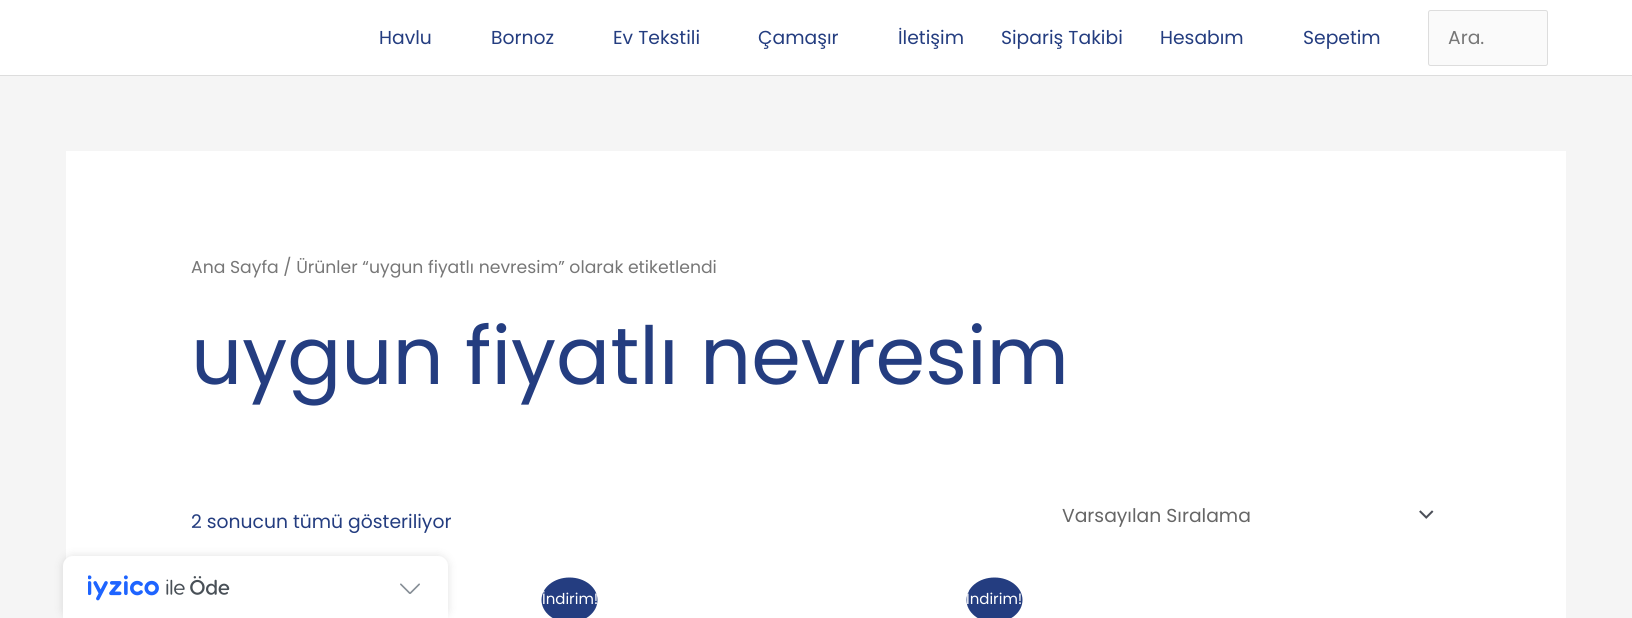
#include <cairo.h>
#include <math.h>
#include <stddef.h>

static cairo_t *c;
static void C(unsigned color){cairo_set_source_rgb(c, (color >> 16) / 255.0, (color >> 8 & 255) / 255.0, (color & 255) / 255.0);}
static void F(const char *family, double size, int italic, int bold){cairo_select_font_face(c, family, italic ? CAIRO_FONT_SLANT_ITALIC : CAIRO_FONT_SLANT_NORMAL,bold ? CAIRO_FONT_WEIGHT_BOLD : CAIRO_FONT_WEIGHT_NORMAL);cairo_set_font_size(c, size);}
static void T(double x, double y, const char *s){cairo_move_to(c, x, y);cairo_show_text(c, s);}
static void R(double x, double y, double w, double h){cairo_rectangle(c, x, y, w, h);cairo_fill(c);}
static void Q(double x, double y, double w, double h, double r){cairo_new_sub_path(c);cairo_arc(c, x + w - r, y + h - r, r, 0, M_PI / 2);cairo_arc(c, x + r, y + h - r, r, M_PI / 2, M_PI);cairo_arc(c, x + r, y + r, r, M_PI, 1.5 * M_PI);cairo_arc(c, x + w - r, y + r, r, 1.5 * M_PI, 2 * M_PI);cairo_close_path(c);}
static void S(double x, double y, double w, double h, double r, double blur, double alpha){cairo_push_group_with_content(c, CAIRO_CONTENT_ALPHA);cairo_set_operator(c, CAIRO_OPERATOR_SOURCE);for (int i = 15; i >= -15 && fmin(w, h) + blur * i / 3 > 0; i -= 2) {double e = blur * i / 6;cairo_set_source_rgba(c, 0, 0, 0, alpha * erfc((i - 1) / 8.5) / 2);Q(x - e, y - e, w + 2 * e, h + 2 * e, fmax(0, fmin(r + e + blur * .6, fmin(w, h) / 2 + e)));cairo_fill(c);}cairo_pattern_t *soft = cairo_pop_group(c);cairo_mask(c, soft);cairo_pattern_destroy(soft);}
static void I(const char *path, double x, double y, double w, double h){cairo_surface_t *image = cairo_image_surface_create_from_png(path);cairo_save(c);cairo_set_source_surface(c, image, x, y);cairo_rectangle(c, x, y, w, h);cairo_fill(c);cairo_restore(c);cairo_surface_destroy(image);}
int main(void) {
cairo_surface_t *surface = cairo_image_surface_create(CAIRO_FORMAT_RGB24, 1632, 618);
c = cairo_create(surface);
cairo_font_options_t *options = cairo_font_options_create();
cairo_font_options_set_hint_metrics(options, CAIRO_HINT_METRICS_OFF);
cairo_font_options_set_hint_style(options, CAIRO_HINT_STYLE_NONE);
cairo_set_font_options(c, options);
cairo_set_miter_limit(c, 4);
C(0xf5f5f5);
cairo_paint(c);
C(0xffffff);
R(0,0,1632,75);
C(0xdddddd);
R(0,75,1632,1);
F("Poppins",18.75,0,0);
C(0x243d80);
T(379,44,"Havlu");
T(491,44,"Bornoz");
T(613,44,"Ev Tekstili");
T(758,44,"Çamaşır");
T(898,44,"İletişim");
T(1001,44,"Sipariş Takibi");
T(1160,44,"Hesabım");
T(1303,44,"Sepetim");
C(0xfafafa);
Q(1428.5,10.5,119,55,2);
cairo_fill_preserve(c);
C(0xdddddd);
cairo_set_line_width(c,1);
cairo_stroke(c);
C(0x777777);
T(1448,44,"Ara.");
C(0xffffff);
R(66,151,1500,467);
F("Poppins",17.25,0,0);
C(0x777777);
T(191,273,"Ana Sayfa / Ürünler “uygun fiyatlı nevresim” olarak etiketlendi");
F("Poppins",80,0,0);
C(0x243d80);
T(191,384,"uygun fiyatlı nevresim");
F("Poppins",18.75,0,0);
T(191,528,"2 sonucun tümü gösteriliyor");
I("1.png",1419,510,15,9);
C(0x666666);
T(1062,522,"Varsayılan Sıralama");
C(0x243d80);
cairo_new_path(c);
cairo_move_to(c,569.5,577.5);
cairo_curve_to(c,585,577.5,597.5,587.5,597.5,600);
cairo_curve_to(c,597.5,612.5,585,622.5,569.5,622.5);
cairo_curve_to(c,554,622.5,541.5,612.5,541.5,600);
cairo_curve_to(c,541.5,587.5,554,577.5,569.5,577.5);
cairo_close_path(c);
cairo_fill(c);
F("Poppins",15,0,0);
C(0xffffff);
T(542,604,"İndirim!");
C(0x243d80);
cairo_new_path(c);
cairo_move_to(c,994.5,577.5);
cairo_curve_to(c,1010,577.5,1022.5,587.5,1022.5,600);
cairo_curve_to(c,1022.5,612.5,1010,622.5,994.5,622.5);
cairo_curve_to(c,979,622.5,966.5,612.5,966.5,600);
cairo_curve_to(c,966.5,587.5,979,577.5,994.5,577.5);
cairo_close_path(c);
cairo_fill(c);
C(0xffffff);
T(966,604,"İndirim!");
C(0x000000);
S(63,556,385,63,10,5,.12);
C(0xffffff);
cairo_new_path(c);
cairo_move_to(c,73,556);
cairo_line_to(c,438,556);
cairo_curve_to(c,443.5,556,448,560.5,448,566);
cairo_line_to(c,448,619);
cairo_line_to(c,63,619);
cairo_line_to(c,63,566);
cairo_curve_to(c,63,560.5,67.5,556,73,556);
cairo_close_path(c);
cairo_fill(c);
I("2.png",88,575,142,26);
I("3.png",400,583,20,11);
cairo_surface_write_to_png(surface, "o.png");
cairo_font_options_destroy(options);
cairo_destroy(c);
cairo_surface_destroy(surface);
return 0;
}
